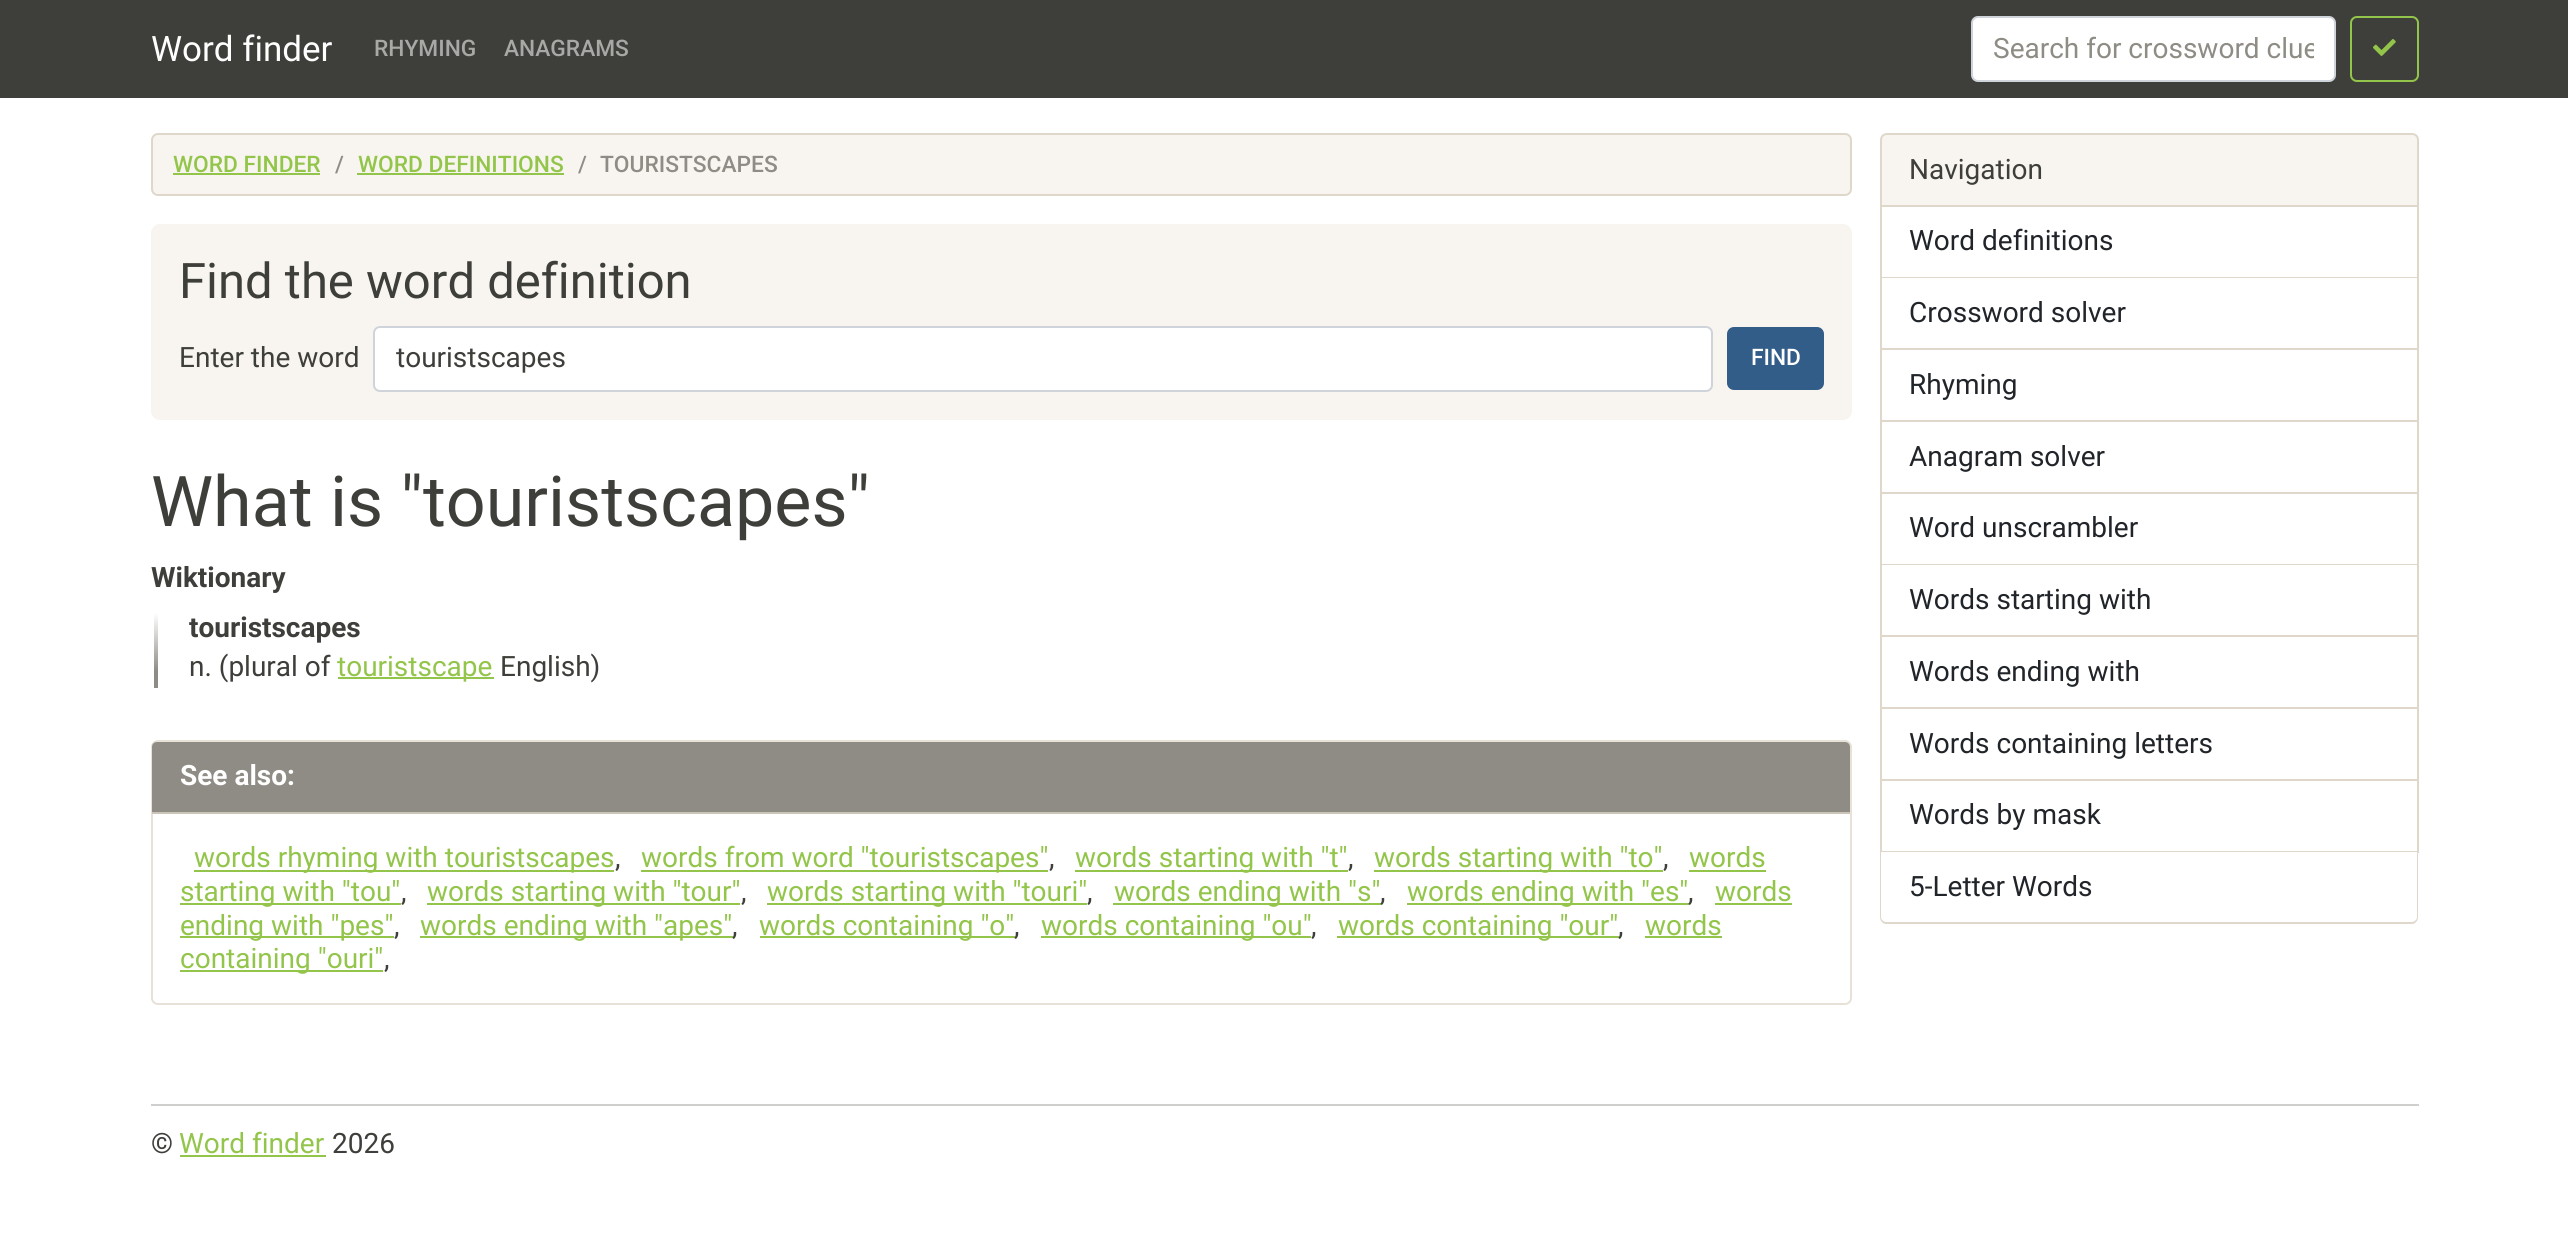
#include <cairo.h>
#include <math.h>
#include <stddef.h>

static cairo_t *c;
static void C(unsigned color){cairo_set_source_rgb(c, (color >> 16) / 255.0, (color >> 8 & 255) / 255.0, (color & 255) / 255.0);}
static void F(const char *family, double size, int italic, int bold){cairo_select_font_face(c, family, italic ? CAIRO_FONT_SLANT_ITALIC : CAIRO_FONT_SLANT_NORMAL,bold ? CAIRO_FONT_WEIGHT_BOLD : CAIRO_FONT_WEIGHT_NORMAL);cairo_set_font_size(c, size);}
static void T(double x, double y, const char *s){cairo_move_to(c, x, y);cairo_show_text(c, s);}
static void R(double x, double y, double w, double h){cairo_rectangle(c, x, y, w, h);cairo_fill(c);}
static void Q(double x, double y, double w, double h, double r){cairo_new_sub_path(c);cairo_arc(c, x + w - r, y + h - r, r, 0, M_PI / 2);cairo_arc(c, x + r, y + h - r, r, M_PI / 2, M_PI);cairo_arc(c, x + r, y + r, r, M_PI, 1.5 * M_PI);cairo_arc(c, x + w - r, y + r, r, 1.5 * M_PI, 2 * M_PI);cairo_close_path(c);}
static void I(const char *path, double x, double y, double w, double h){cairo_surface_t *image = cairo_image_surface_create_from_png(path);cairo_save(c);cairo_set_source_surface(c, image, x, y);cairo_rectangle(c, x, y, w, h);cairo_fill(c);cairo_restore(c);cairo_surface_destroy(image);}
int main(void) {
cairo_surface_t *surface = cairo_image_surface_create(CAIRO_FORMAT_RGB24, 2568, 1253);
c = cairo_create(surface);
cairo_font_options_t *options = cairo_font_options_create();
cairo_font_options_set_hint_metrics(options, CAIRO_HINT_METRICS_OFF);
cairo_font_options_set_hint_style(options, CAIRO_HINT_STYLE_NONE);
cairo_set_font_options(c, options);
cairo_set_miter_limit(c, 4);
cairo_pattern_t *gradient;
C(0xffffff);
cairo_paint(c);
C(0x3e3f3a);
R(0,0,2568,98);
F("Roboto",35,0,0);
C(0xffffff);
T(151,61,"Word finder");
F("Roboto Medium",22.75,0,0);
C(0xa8a9a6);
T(374,56,"RHYMING");
T(504,56,"ANAGRAMS");
C(0xffffff);
Q(1972,17,363,64,6);
cairo_fill_preserve(c);
C(0xced4da);
cairo_stroke(c);
cairo_save(c);
cairo_rectangle(c,1993,32,321,33);
cairo_clip(c);
F("Roboto",28,0,0);
C(0x8e8c84);
T(1993,58,"Search for crossword clue");
cairo_restore(c);
Q(2351,17,67,64,6);
C(0x93c54b);
cairo_stroke(c);
I("1.png",2373,39,23,17);
C(0xf8f5f0);
Q(152,134,1699,61,6);
cairo_fill_preserve(c);
C(0xdfd7ca);
cairo_stroke(c);
C(0x93c54b);
T(173,172,"WORD FINDER");
R(173,173,147,2);
C(0x8e8c84);
T(335,172,"/");
C(0x93c54b);
T(358,172,"WORD DEFINITIONS");
R(357,173,207,2);
C(0x8e8c84);
T(578,172,"/");
T(600,172,"TOURISTSCAPES");
C(0xf8f5f0);
Q(151,224,1701,196,9);
cairo_fill(c);
F("Roboto",49,0,0);
C(0x3e3f3a);
T(179,298,"Find the word definition");
F("Roboto",28,0,0);
T(179,367,"Enter the word");
C(0xffffff);
Q(374,327,1338,64,6);
cairo_fill_preserve(c);
C(0xced4da);
cairo_stroke(c);
C(0x3e3f3a);
T(396,367,"touristscapes");
C(0x325d88);
Q(1728,328,95,61,6);
cairo_fill_preserve(c);
cairo_stroke(c);
F("Roboto Medium",22.75,0,0);
C(0xffffff);
T(1751,365,"FIND");
F("Roboto",70,0,0);
C(0x3e3f3a);
T(151,526,"What is \"touristscapes\"");
F("Roboto",28,0,1);
T(151,587,"Wiktionary");
gradient = cairo_pattern_create_linear(156,613,156,691);
cairo_pattern_add_color_stop_rgba(gradient,0,1,1,1,1);
cairo_pattern_add_color_stop_rgba(gradient,.75,0.557,0.549,0.518,1);
cairo_set_source(c,gradient);
cairo_pattern_destroy(gradient);
R(154,613,4,75);
C(0x3e3f3a);
T(189,637,"touristscapes");
F("Roboto",28,0,0);
T(189,676,"n. (plural of");
C(0x93c54b);
R(338,677,156,2);
T(337,676,"touristscape");
C(0x3e3f3a);
T(500,676,"English)");
Q(152,741,1699,263,6);
C(0xe7e1d7);
cairo_stroke(c);
C(0x8e8c84);
cairo_new_path(c);
cairo_move_to(c,157,742);
cairo_line_to(c,1845,742);
cairo_curve_to(c,1848,742,1850,744,1850,747);
cairo_line_to(c,1850,814);
cairo_line_to(c,152,814);
cairo_line_to(c,152,747);
cairo_curve_to(c,152,744,154,742,157,742);
cairo_close_path(c);
cairo_fill(c);
C(0xcbc4b9);
R(152,812,1698,2);
F("Roboto",28,0,1);
C(0xffffff);
T(180,785,"See also:");
C(0x93c54b);
R(194,870,420,2);
F("Roboto",28,0,0);
T(194,867,"words rhyming with touristscapes");
C(0x3e3f3a);
T(615,867,",");
C(0x93c54b);
R(641,870,407,2);
T(641,867,"words from word \"touristscapes\"");
C(0x3e3f3a);
T(1049,867,",");
C(0x93c54b);
R(1075,870,273,2);
T(1075,867,"words starting with \"t\"");
C(0x3e3f3a);
T(1348,867,",");
C(0x93c54b);
R(1374,870,289,2);
T(1374,867,"words starting with \"to\"");
C(0x3e3f3a);
T(1663,867,",");
C(0x93c54b);
T(1689,867,"words");
R(1689,870,77,2);
R(180,903,221,2);
T(180,901,"starting with \"tou\"");
C(0x3e3f3a);
T(401,901,",");
C(0x93c54b);
R(427,903,313,2);
T(427,901,"words starting with \"tour\"");
C(0x3e3f3a);
T(741,901,",");
C(0x93c54b);
R(767,903,320,2);
T(767,901,"words starting with \"touri\"");
C(0x3e3f3a);
T(1087,901,",");
C(0x93c54b);
R(1113,903,268,2);
T(1114,901,"words ending with \"s\"");
C(0x3e3f3a);
T(1380,901,",");
C(0x93c54b);
R(1407,903,282,2);
T(1407,901,"words ending with \"es\"");
C(0x3e3f3a);
T(1688,901,",");
C(0x93c54b);
T(1715,901,"words");
R(1715,903,77,2);
R(180,936,214,2);
T(180,935,"ending with \"pes\"");
C(0x3e3f3a);
T(394,935,",");
C(0x93c54b);
R(420,936,313,2);
T(420,935,"words ending with \"apes\"");
C(0x3e3f3a);
T(732,935,",");
C(0x93c54b);
R(760,936,255,2);
T(759,935,"words containing \"o\"");
C(0x3e3f3a);
T(1014,935,",");
C(0x93c54b);
R(1041,936,270,2);
T(1041,935,"words containing \"ou\"");
C(0x3e3f3a);
T(1311,935,",");
C(0x93c54b);
R(1337,936,282,2);
T(1338,935,"words containing \"our\"");
C(0x3e3f3a);
T(1618,935,",");
C(0x93c54b);
T(1645,935,"words");
R(1645,936,77,2);
R(180,970,203,2);
T(180,968,"containing \"ouri\"");
C(0x3e3f3a);
T(384,968,",");
C(0xf8f5f0);
cairo_new_path(c);
cairo_move_to(c,1887,134);
cairo_line_to(c,2412,134);
cairo_curve_to(c,2415.5,134,2418,136.5,2418,140);
cairo_line_to(c,2418,206);
cairo_line_to(c,1881,206);
cairo_line_to(c,1881,140);
cairo_curve_to(c,1881,136.5,1883.5,134,1887,134);
cairo_close_path(c);
cairo_fill_preserve(c);
C(0xdfd7ca);
cairo_stroke(c);
C(0x3e3f3a);
T(1909,179,"Navigation");
C(0xdfd7ca);
R(2417,207,2,645);
R(1880,277,539,1);
R(1880,207,2,71);
C(0x212529);
T(1909,250,"Word definitions");
C(0xdfd7ca);
R(1880,348,539,2);
R(1880,278,2,72);
C(0x212529);
T(1909,322,"Crossword solver");
C(0xdfd7ca);
R(1880,420,539,2);
R(1880,350,2,72);
C(0x212529);
T(1909,394,"Rhyming");
C(0xdfd7ca);
R(1880,492,539,2);
R(1880,422,2,72);
C(0x212529);
T(1909,466,"Anagram solver");
C(0xdfd7ca);
R(1880,564,539,1);
R(1880,494,2,71);
C(0x212529);
T(1909,537,"Word unscrambler");
C(0xdfd7ca);
R(1880,635,539,2);
R(1880,565,2,72);
C(0x212529);
T(1909,609,"Words starting with");
C(0xdfd7ca);
R(1880,707,539,2);
R(1880,637,2,72);
C(0x212529);
T(1909,681,"Words ending with");
C(0xdfd7ca);
R(1880,779,539,2);
R(1880,709,2,72);
C(0x212529);
T(1909,753,"Words containing letters");
C(0xdfd7ca);
R(1880,851,539,2);
R(1880,781,2,71);
C(0x212529);
T(1909,824,"Words by mask");
C(0xffffff);
cairo_new_path(c);
cairo_move_to(c,1881,852);
cairo_line_to(c,2417,852);
cairo_line_to(c,2417,917);
cairo_curve_to(c,2417,920,2415,922,2412,922);
cairo_line_to(c,1886,922);
cairo_curve_to(c,1883,922,1881,920,1881,917);
cairo_close_path(c);
cairo_fill(c);
C(0xdfd7ca);
cairo_set_fill_rule(c,CAIRO_FILL_RULE_EVEN_ODD);
cairo_new_path(c);
cairo_move_to(c,1880,852);
cairo_line_to(c,2418,852);
cairo_line_to(c,2418,917);
cairo_curve_to(c,2418,921,2415,924,2412,924);
cairo_line_to(c,1886,924);
cairo_curve_to(c,1883,924,1880,921,1880,917);
cairo_close_path(c);
cairo_move_to(c,1881,852);
cairo_line_to(c,2417,852);
cairo_line_to(c,2417,917);
cairo_curve_to(c,2417,920,2414,922,2412,922);
cairo_line_to(c,1886,922);
cairo_curve_to(c,1884,922,1881,920,1881,917);
cairo_close_path(c);
cairo_fill(c);
C(0x212529);
T(1909,896,"5-Letter Words");
C(0xcfcfce);
R(151,1104,2268,2);
C(0x3e3f3a);
T(151,1153,"©");
C(0x93c54b);
T(179,1153,"Word finder");
R(180,1155,146,2);
C(0x3e3f3a);
T(332,1153,"2026");
cairo_surface_write_to_png(surface, "o.png");
cairo_font_options_destroy(options);
cairo_destroy(c);
cairo_surface_destroy(surface);
return 0;
}
